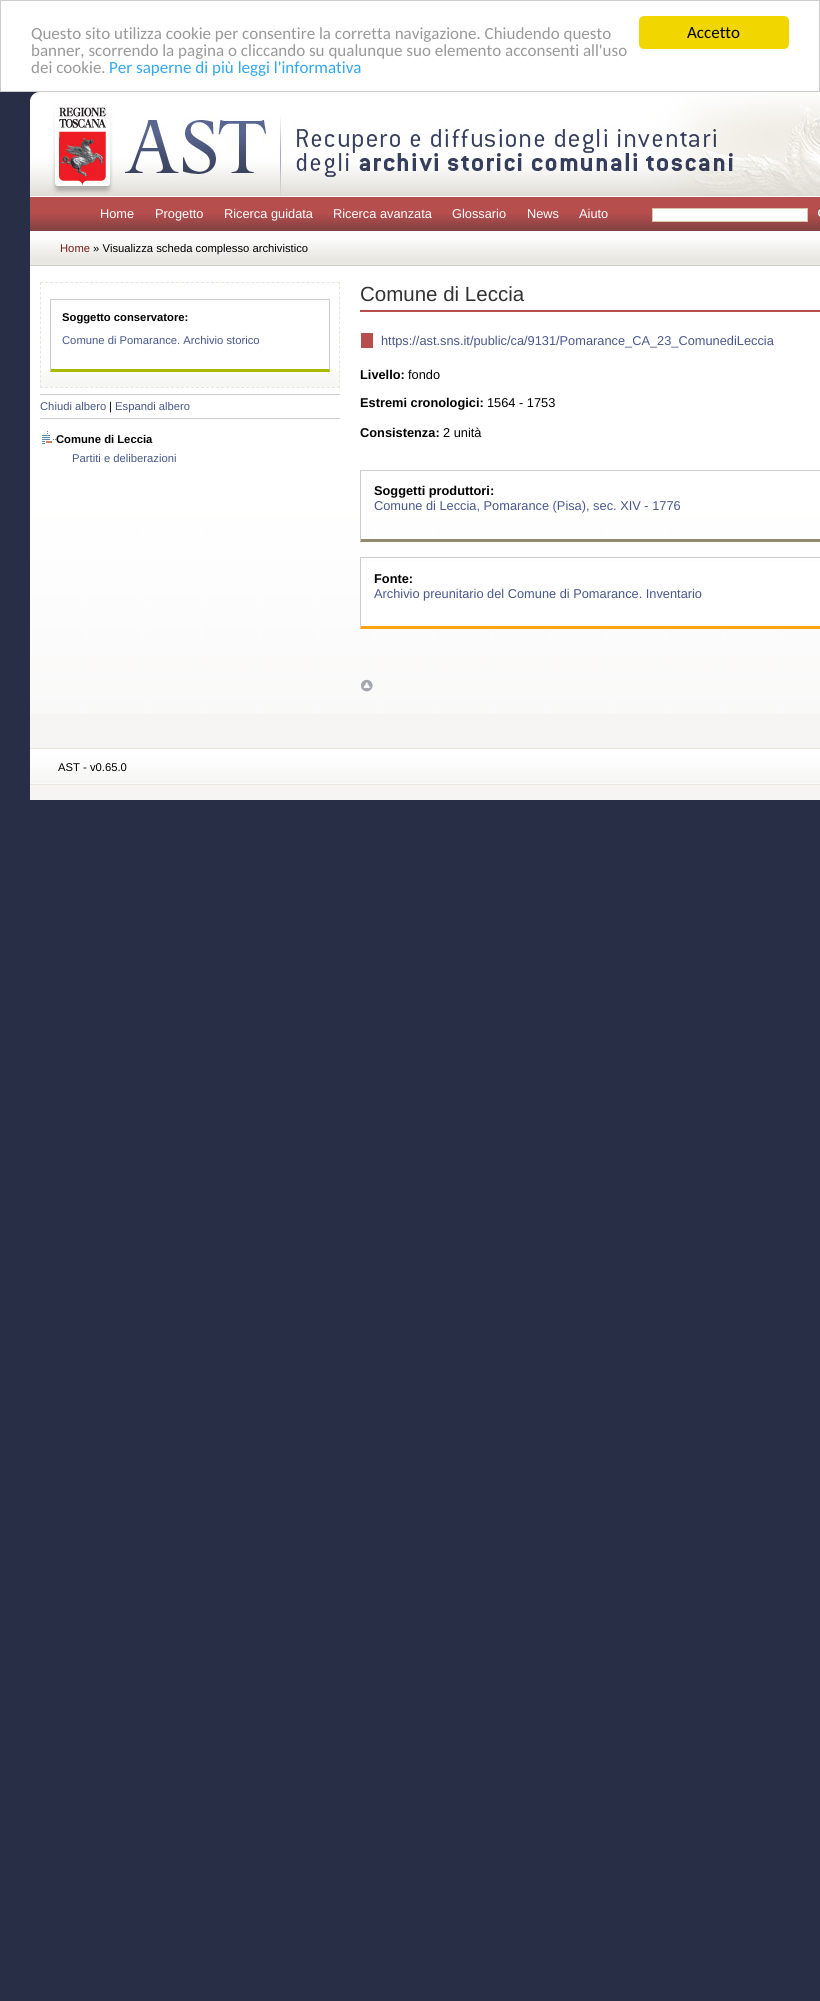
#include <cairo.h>
#include <math.h>
#include <stddef.h>

static cairo_t *c;
static void C(unsigned color){cairo_set_source_rgb(c, (color >> 16) / 255.0, (color >> 8 & 255) / 255.0, (color & 255) / 255.0);}
static void F(const char *family, double size, int italic, int bold){cairo_select_font_face(c, family, italic ? CAIRO_FONT_SLANT_ITALIC : CAIRO_FONT_SLANT_NORMAL,bold ? CAIRO_FONT_WEIGHT_BOLD : CAIRO_FONT_WEIGHT_NORMAL);cairo_set_font_size(c, size);}
static void T(double x, double y, const char *s){cairo_move_to(c, x, y);cairo_show_text(c, s);}
static void R(double x, double y, double w, double h){cairo_rectangle(c, x, y, w, h);cairo_fill(c);}
static void Q(double x, double y, double w, double h, double r){cairo_new_sub_path(c);cairo_arc(c, x + w - r, y + h - r, r, 0, M_PI / 2);cairo_arc(c, x + r, y + h - r, r, M_PI / 2, M_PI);cairo_arc(c, x + r, y + r, r, M_PI, 1.5 * M_PI);cairo_arc(c, x + w - r, y + r, r, 1.5 * M_PI, 2 * M_PI);cairo_close_path(c);}
static void I(const char *path, double x, double y, double w, double h){cairo_surface_t *image = cairo_image_surface_create_from_png(path);cairo_save(c);cairo_set_source_surface(c, image, x, y);cairo_rectangle(c, x, y, w, h);cairo_fill(c);cairo_restore(c);cairo_surface_destroy(image);}
int main(void) {
cairo_surface_t *surface = cairo_image_surface_create(CAIRO_FORMAT_RGB24, 820, 2001);
c = cairo_create(surface);
cairo_font_options_t *options = cairo_font_options_create();
cairo_font_options_set_hint_metrics(options, CAIRO_HINT_METRICS_OFF);
cairo_font_options_set_hint_style(options, CAIRO_HINT_STYLE_NONE);
cairo_set_font_options(c, options);
cairo_set_miter_limit(c, 4);
C(0x282e46);
cairo_paint(c);
C(0xffffff);
cairo_rectangle(c,.5,.5,819,91);
cairo_fill_preserve(c);
C(0xcccccc);
cairo_set_line_width(c,1);
cairo_stroke(c);
F("Carlito",17,0,0);
C(0x999999);
T(31,39,"Questo sito utilizza cookie per consentire la corretta navigazione. Chiudendo questo");
T(31,56,"banner, scorrendo la pagina o cliccando su qualunque suo elemento acconsenti all'uso");
T(31,73,"dei cookie.");
C(0x31a8f0);
T(109,73,"Per saperne di più leggi l'informativa");
C(0xf1d600);
Q(639,16,150,33,5);
cairo_fill(c);
C(0x000000);
T(687,38,"Accetto");
C(0xf6f5f3);
R(30,714,790,86);
I("1.png",30,92,790,104);
C(0xb74e4e);
R(30,197,790,17);
I("2.png",30,214,790,17);
C(0xffffff);
R(30,196,790,1);
F("Liberation Sans",12.8,0,0);
T(100,218,"Home");
T(155,218,"Progetto");
T(224,218,"Ricerca guidata");
T(333,218,"Ricerca avanzata");
T(452,218,"Glossario");
T(527,218,"News");
T(579,218,"Aiuto");
cairo_rectangle(c,652.5,208.5,155,13);
cairo_fill_preserve(c);
C(0xdbc3a8);
cairo_stroke(c);
I("3.png",818,208,2,9);
C(0xfdfdfd);
R(30,231,790,9);
I("4.png",30,240,790,25);
C(0xd1d0cb);
R(30,265,790,1);
F("Liberation Sans",11.25,0,0);
C(0x791b1d);
T(60,252,"Home");
C(0x000000);
T(93,252,"» Visualizza scheda complesso archivistico");
I("5.png",30,266,790,448);
I("6.png",40,370,300,17);
cairo_new_path(c);
cairo_move_to(c,40,282.5);
cairo_line_to(c,340,282.5);
C(0xe8e5de);
cairo_set_dash(c,(double[]){3,2.03},2,0);
cairo_stroke(c);
cairo_new_path(c);
cairo_move_to(c,339.5,282);
cairo_line_to(c,339.5,388);
cairo_set_dash(c,(double[]){3,1.9},2,0);
cairo_stroke(c);
cairo_new_path(c);
cairo_move_to(c,40,387.5);
cairo_line_to(c,340,387.5);
cairo_set_dash(c,(double[]){3,2.03},2,0);
cairo_stroke(c);
cairo_new_path(c);
cairo_move_to(c,40.5,282);
cairo_line_to(c,40.5,388);
cairo_set_dash(c,(double[]){3,1.9},2,0);
cairo_stroke(c);
C(0xcccccc);
R(50,299,280,1);
cairo_new_path(c);
cairo_move_to(c,330,299);
cairo_line_to(c,330,372);
cairo_line_to(c,329,369);
cairo_line_to(c,329,300);
cairo_close_path(c);
cairo_fill(c);
C(0xa8b900);
cairo_new_path(c);
cairo_move_to(c,330,372);
cairo_line_to(c,50,372);
cairo_line_to(c,51,369);
cairo_line_to(c,329,369);
cairo_close_path(c);
cairo_fill(c);
C(0xcccccc);
cairo_new_path(c);
cairo_move_to(c,50,372);
cairo_line_to(c,50,299);
cairo_line_to(c,51,300);
cairo_line_to(c,51,369);
cairo_close_path(c);
cairo_fill(c);
F("Liberation Sans",11.25,0,1);
C(0x000000);
T(62,321,"Soggetto conservatore:");
F("Liberation Sans",11.25,0,0);
C(0x49578b);
T(62,344,"Comune di Pomarance. Archivio storico");
C(0xcccccc);
R(40,394,300,1);
R(40,418,300,1);
C(0x49578b);
T(40,410,"Chiudi albero");
C(0x000000);
T(109,410,"|");
C(0x49578b);
T(115,410,"Espandi albero");
I("7.png",42,431,14,13);
F("Liberation Sans",11.25,0,1);
C(0x000000);
T(56,443,"Comune di Leccia");
F("Liberation Sans",11.25,0,0);
C(0x49578b);
T(72,462,"Partiti e deliberazioni");
C(0xb74e4e);
R(360,310,460,2);
F("Liberation Sans",20.5,0,0);
C(0x333333);
T(360,301,"Comune di Leccia");
C(0xb74e4e);
R(361,333,12,15);
F("Liberation Sans",12.8,0,0);
C(0x49578b);
T(381,345,"https://ast.sns.it/public/ca/9131/Pomarance_CA_23_ComunediLeccia");
F("Liberation Sans",12.8,0,1);
C(0x000000);
T(360,379,"Livello:");
F("Liberation Sans",12.8,0,0);
T(408,379,"fondo");
F("Liberation Sans",12.8,0,1);
T(360,407,"Estremi cronologici:");
F("Liberation Sans",12.8,0,0);
T(487,407,"1564 - 1753");
F("Liberation Sans",12.8,0,1);
T(360,437,"Consistenza:");
F("Liberation Sans",12.8,0,0);
T(443,437,"2 unità");
C(0xcccccc);
R(360,470,460,1);
C(0x928b70);
cairo_new_path(c);
cairo_move_to(c,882,542);
cairo_line_to(c,360,542);
cairo_line_to(c,361,539);
cairo_line_to(c,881,539);
cairo_close_path(c);
cairo_fill(c);
C(0xcccccc);
cairo_new_path(c);
cairo_move_to(c,360,542);
cairo_line_to(c,360,470);
cairo_line_to(c,361,471);
cairo_line_to(c,361,539);
cairo_close_path(c);
cairo_fill(c);
F("Liberation Sans",12.8,0,1);
C(0x000000);
T(374,495,"Soggetti produttori:");
F("Liberation Sans",12.8,0,0);
C(0x49578b);
T(374,510,"Comune di Leccia, Pomarance (Pisa), sec. XIV - 1776");
C(0xffffff);
R(361,562,459,64);
C(0xcccccc);
R(360,557,460,1);
C(0xfaa411);
cairo_new_path(c);
cairo_move_to(c,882,629);
cairo_line_to(c,360,629);
cairo_line_to(c,361,626);
cairo_line_to(c,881,626);
cairo_close_path(c);
cairo_fill(c);
C(0xcccccc);
cairo_new_path(c);
cairo_move_to(c,360,629);
cairo_line_to(c,360,557);
cairo_line_to(c,361,558);
cairo_line_to(c,361,626);
cairo_close_path(c);
cairo_fill(c);
F("Liberation Sans",12.8,0,1);
C(0x000000);
T(374,583,"Fonte:");
F("Liberation Sans",12.8,0,0);
C(0x49578b);
T(374,598,"Archivio preunitario del Comune di Pomarance. Inventario");
I("8.png",360,679,13,13);
I("9.png",30,749,790,35);
C(0xe8e5de);
R(30,748,790,1);
R(30,784,790,1);
F("Liberation Sans",11.25,0,0);
C(0x000000);
T(58,771,"AST - v0.65.0");
cairo_surface_write_to_png(surface, "o.png");
cairo_font_options_destroy(options);
cairo_destroy(c);
cairo_surface_destroy(surface);
return 0;
}
